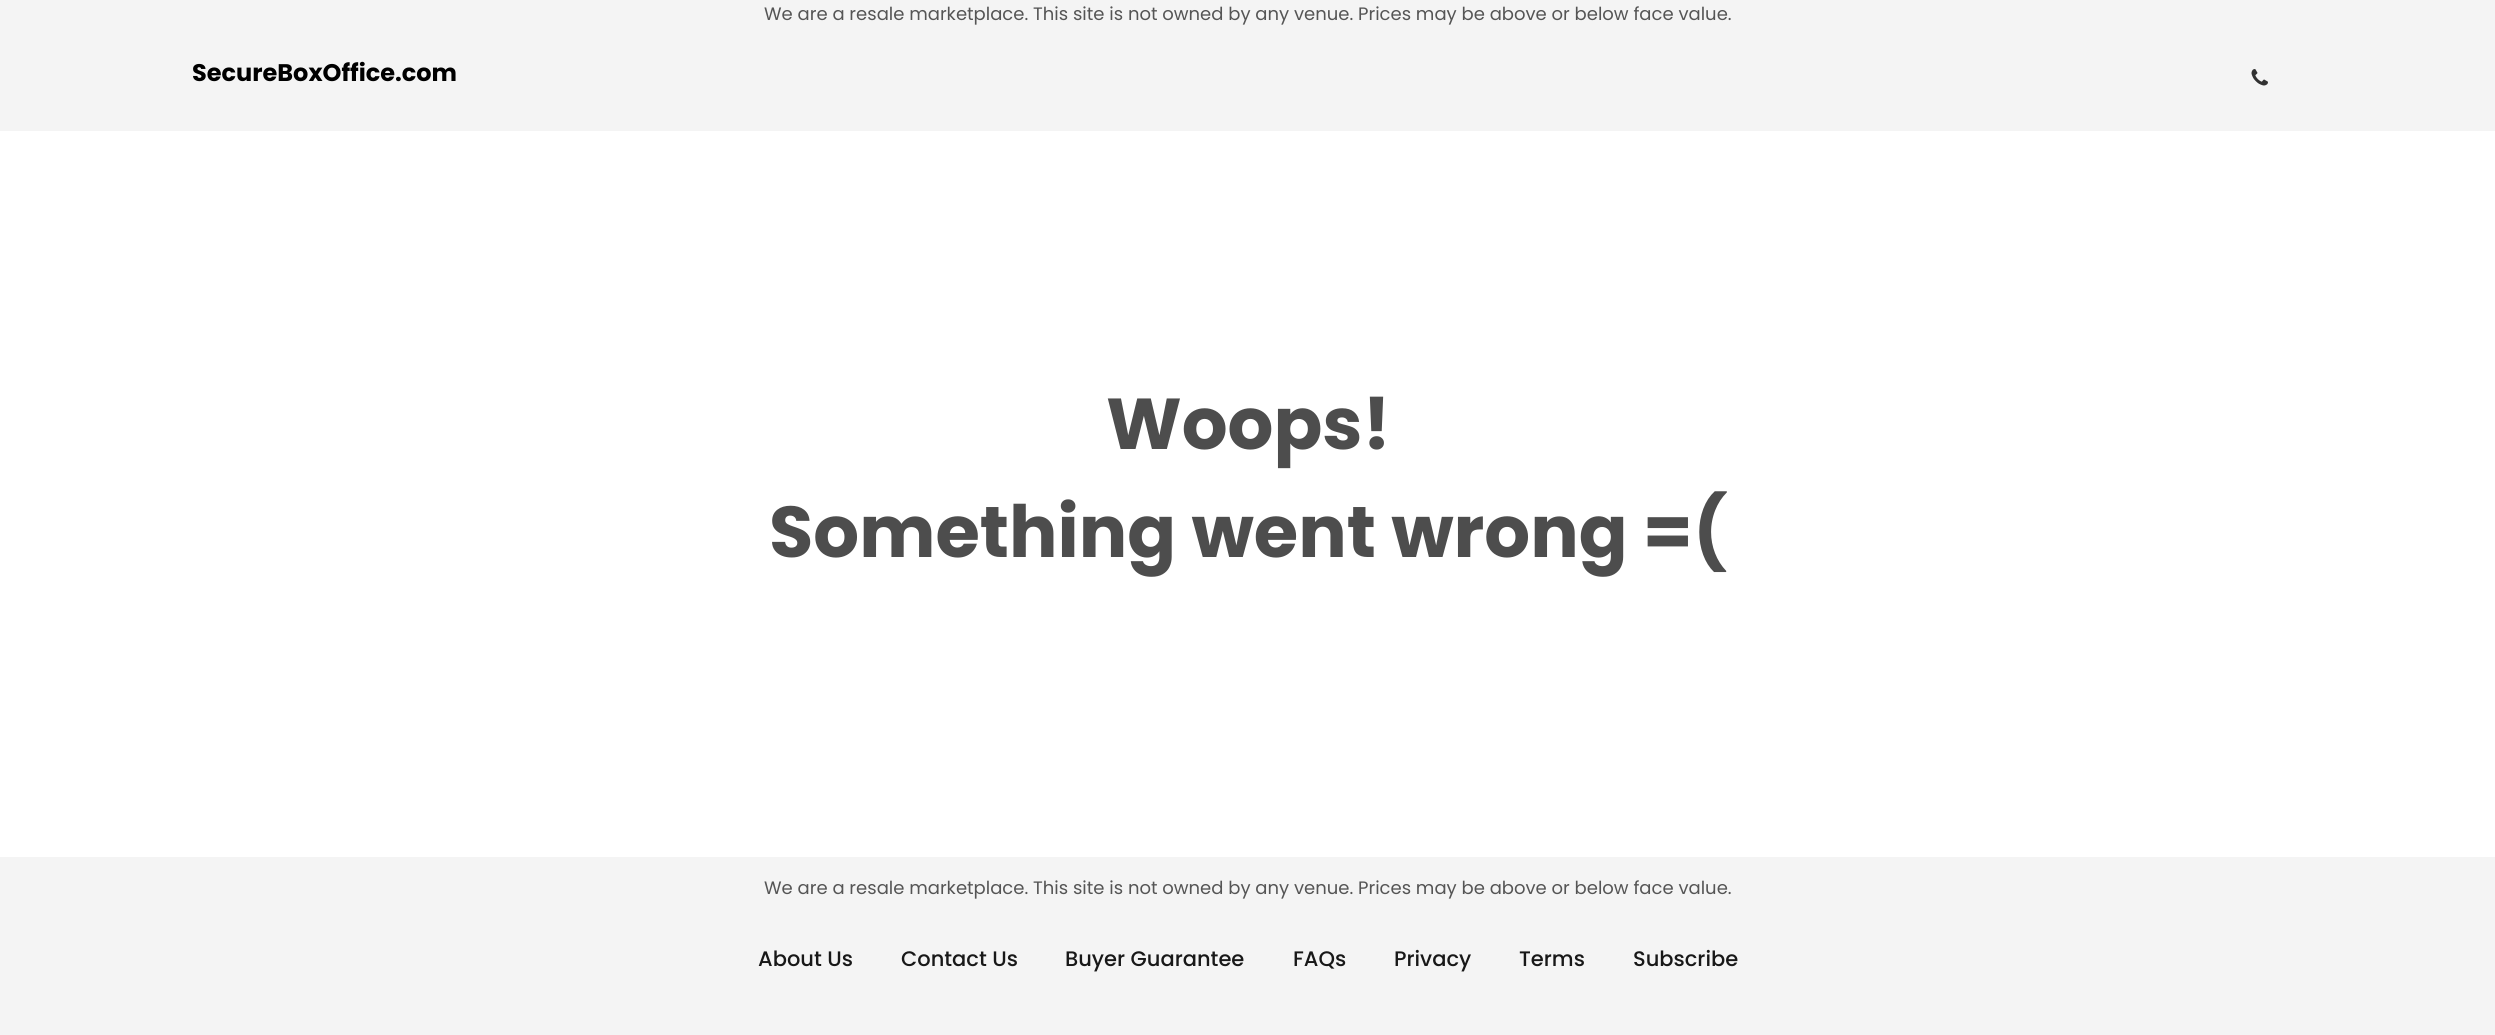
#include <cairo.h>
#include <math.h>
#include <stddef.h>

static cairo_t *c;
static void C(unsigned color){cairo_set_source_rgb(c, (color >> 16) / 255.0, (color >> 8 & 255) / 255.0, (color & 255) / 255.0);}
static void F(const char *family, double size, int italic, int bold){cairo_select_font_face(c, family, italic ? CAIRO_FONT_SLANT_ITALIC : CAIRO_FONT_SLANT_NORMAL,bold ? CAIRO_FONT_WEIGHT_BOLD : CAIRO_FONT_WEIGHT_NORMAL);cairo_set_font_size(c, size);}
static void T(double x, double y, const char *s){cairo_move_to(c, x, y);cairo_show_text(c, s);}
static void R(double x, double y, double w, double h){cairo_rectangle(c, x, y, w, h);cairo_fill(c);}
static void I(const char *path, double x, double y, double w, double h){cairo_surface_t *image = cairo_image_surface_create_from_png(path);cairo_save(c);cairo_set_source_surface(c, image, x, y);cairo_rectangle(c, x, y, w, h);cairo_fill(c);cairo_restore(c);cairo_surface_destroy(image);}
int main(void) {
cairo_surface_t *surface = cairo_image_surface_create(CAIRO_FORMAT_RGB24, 2495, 1035);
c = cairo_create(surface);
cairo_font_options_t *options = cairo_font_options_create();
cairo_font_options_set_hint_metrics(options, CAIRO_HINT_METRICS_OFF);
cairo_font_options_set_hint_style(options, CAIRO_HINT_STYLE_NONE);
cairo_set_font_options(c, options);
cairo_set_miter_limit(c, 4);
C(0xffffff);
cairo_paint(c);
C(0xf4f4f4);
R(0,0,2495,131);
F("Poppins",18,0,0);
C(0x555555);
T(764,20,"We are a resale marketplace. This site is not owned by any venue. Prices may be above or below face value.");
F("Poppins",24,0,1);
C(0x000000);
T(192,81,"SecureBoxOffice.com");
I("1.png",2251,69,17,17);
F("Poppins",72,0,1);
C(0x4d4d4d);
T(1106,449,"Woops!");
T(769,557,"Something went wrong =(");
C(0xf4f4f4);
R(0,857,2495,178);
F("Poppins",18,0,0);
C(0x555555);
T(764,894,"We are a resale marketplace. This site is not owned by any venue. Prices may be above or below face value.");
F("Poppins Medium",21,0,0);
C(0x181818);
T(758,966,"About Us");
T(901,966,"Contact Us");
T(1065,966,"Buyer Guarantee");
T(1293,966,"FAQs");
T(1394,966,"Privacy");
T(1519,966,"Terms");
T(1633,966,"Subscribe");
cairo_surface_write_to_png(surface, "o.png");
cairo_font_options_destroy(options);
cairo_destroy(c);
cairo_surface_destroy(surface);
return 0;
}
